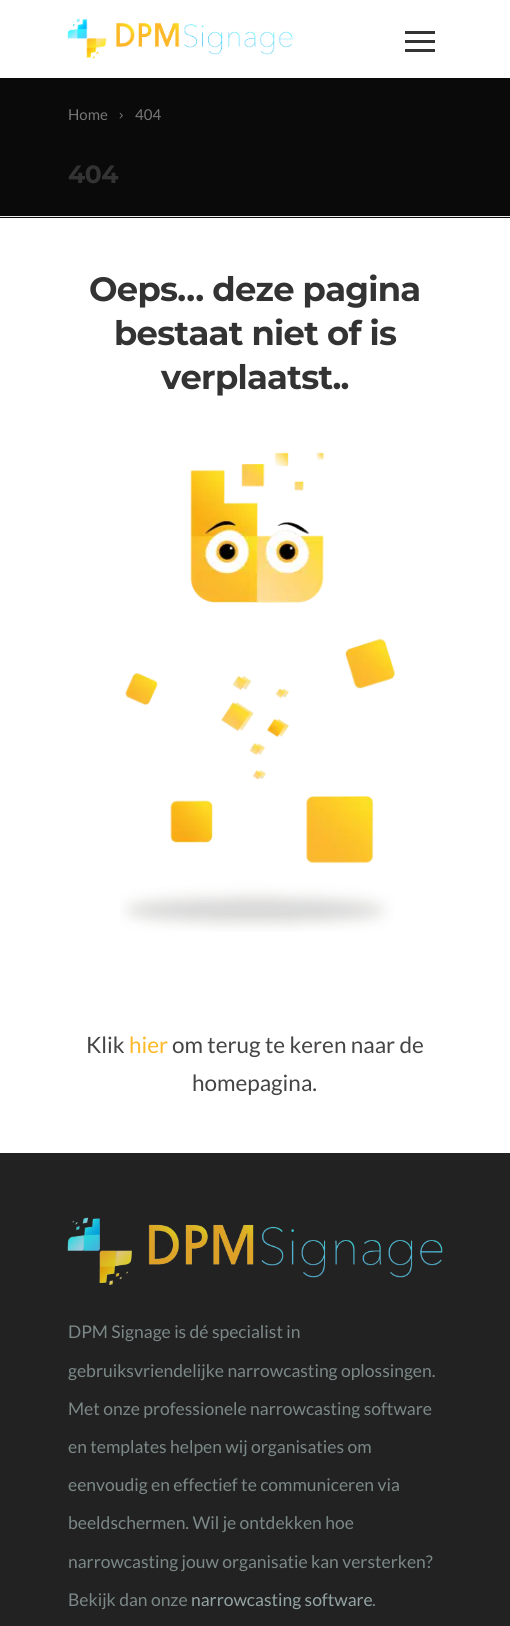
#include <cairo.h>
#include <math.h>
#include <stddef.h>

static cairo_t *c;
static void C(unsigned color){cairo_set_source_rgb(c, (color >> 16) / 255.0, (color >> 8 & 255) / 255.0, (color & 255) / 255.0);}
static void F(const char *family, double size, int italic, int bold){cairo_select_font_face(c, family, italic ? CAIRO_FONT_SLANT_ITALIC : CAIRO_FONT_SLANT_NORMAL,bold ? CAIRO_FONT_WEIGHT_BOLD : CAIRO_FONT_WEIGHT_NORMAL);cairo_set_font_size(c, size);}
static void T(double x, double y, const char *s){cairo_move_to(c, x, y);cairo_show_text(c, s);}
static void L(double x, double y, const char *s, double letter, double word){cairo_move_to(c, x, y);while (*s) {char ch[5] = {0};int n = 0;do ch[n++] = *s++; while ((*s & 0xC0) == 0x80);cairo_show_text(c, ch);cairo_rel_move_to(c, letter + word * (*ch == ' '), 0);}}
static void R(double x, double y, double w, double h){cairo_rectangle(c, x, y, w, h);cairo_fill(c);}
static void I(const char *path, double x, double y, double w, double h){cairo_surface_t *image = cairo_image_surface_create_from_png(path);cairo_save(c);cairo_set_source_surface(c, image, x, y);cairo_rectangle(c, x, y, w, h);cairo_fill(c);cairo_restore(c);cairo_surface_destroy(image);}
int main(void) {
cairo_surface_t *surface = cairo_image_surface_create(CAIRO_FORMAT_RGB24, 510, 1626);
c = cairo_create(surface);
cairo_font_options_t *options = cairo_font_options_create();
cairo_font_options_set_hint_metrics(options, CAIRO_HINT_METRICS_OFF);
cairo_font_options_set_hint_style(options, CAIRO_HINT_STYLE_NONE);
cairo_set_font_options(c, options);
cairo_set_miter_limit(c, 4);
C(0xffffff);
cairo_paint(c);
I("1.png",67,18,226,41);
C(0x333333);
R(405,31,30,3);
R(405,40,30,3);
R(405,49,30,3);
C(0x0a0a0a);
R(0,78,510,140);
C(0xeeeeee);
R(0,216,510,1);
F("Lato",15,0,0);
C(0x777777);
T(68,120,"Home");
I("2.png",119,112,4,7);
T(135,120,"404");
F("Montserrat",25,0,1);
C(0x333333);
L(68,183,"404",-.5,0);
F("Montserrat",33.75,0,1);
L(89,301,"Oeps… deze pagina",-.7,0);
L(114,345,"bestaat niet of is",-.7,0);
L(161,389,"verplaatst..",-.7,0);
I("3.png",120,452,275,480);
F("Lato",22.5,0,0);
C(0x444444);
T(86,1053,"Klik");
C(0xffb829);
T(129,1053,"hier");
C(0x444444);
T(172,1053,"om terug te keren naar de");
T(192,1091,"homepagina.");
C(0x222222);
R(0,1153,510,473);
I("4.png",67,1217,376,68);
F("Lato",17.5,0,0);
C(0x7b8887);
T(68,1338,"DPM Signage is dé specialist in");
T(68,1377,"gebruiksvriendelijke narrowcasting oplossingen.");
T(68,1415,"Met onze professionele narrowcasting software");
T(68,1453,"en templates helpen wij organisaties om");
T(68,1491,"eenvoudig en effectief te communiceren via");
T(68,1529,"beeldschermen. Wil je ontdekken hoe");
T(68,1568,"narrowcasting jouw organisatie kan versterken?");
T(68,1606,"Bekijk dan onze");
C(0x94a3a3);
T(191,1606,"narrowcasting software");
C(0x7b8887);
T(372,1606,".");
cairo_surface_write_to_png(surface, "o.png");
cairo_font_options_destroy(options);
cairo_destroy(c);
cairo_surface_destroy(surface);
return 0;
}
